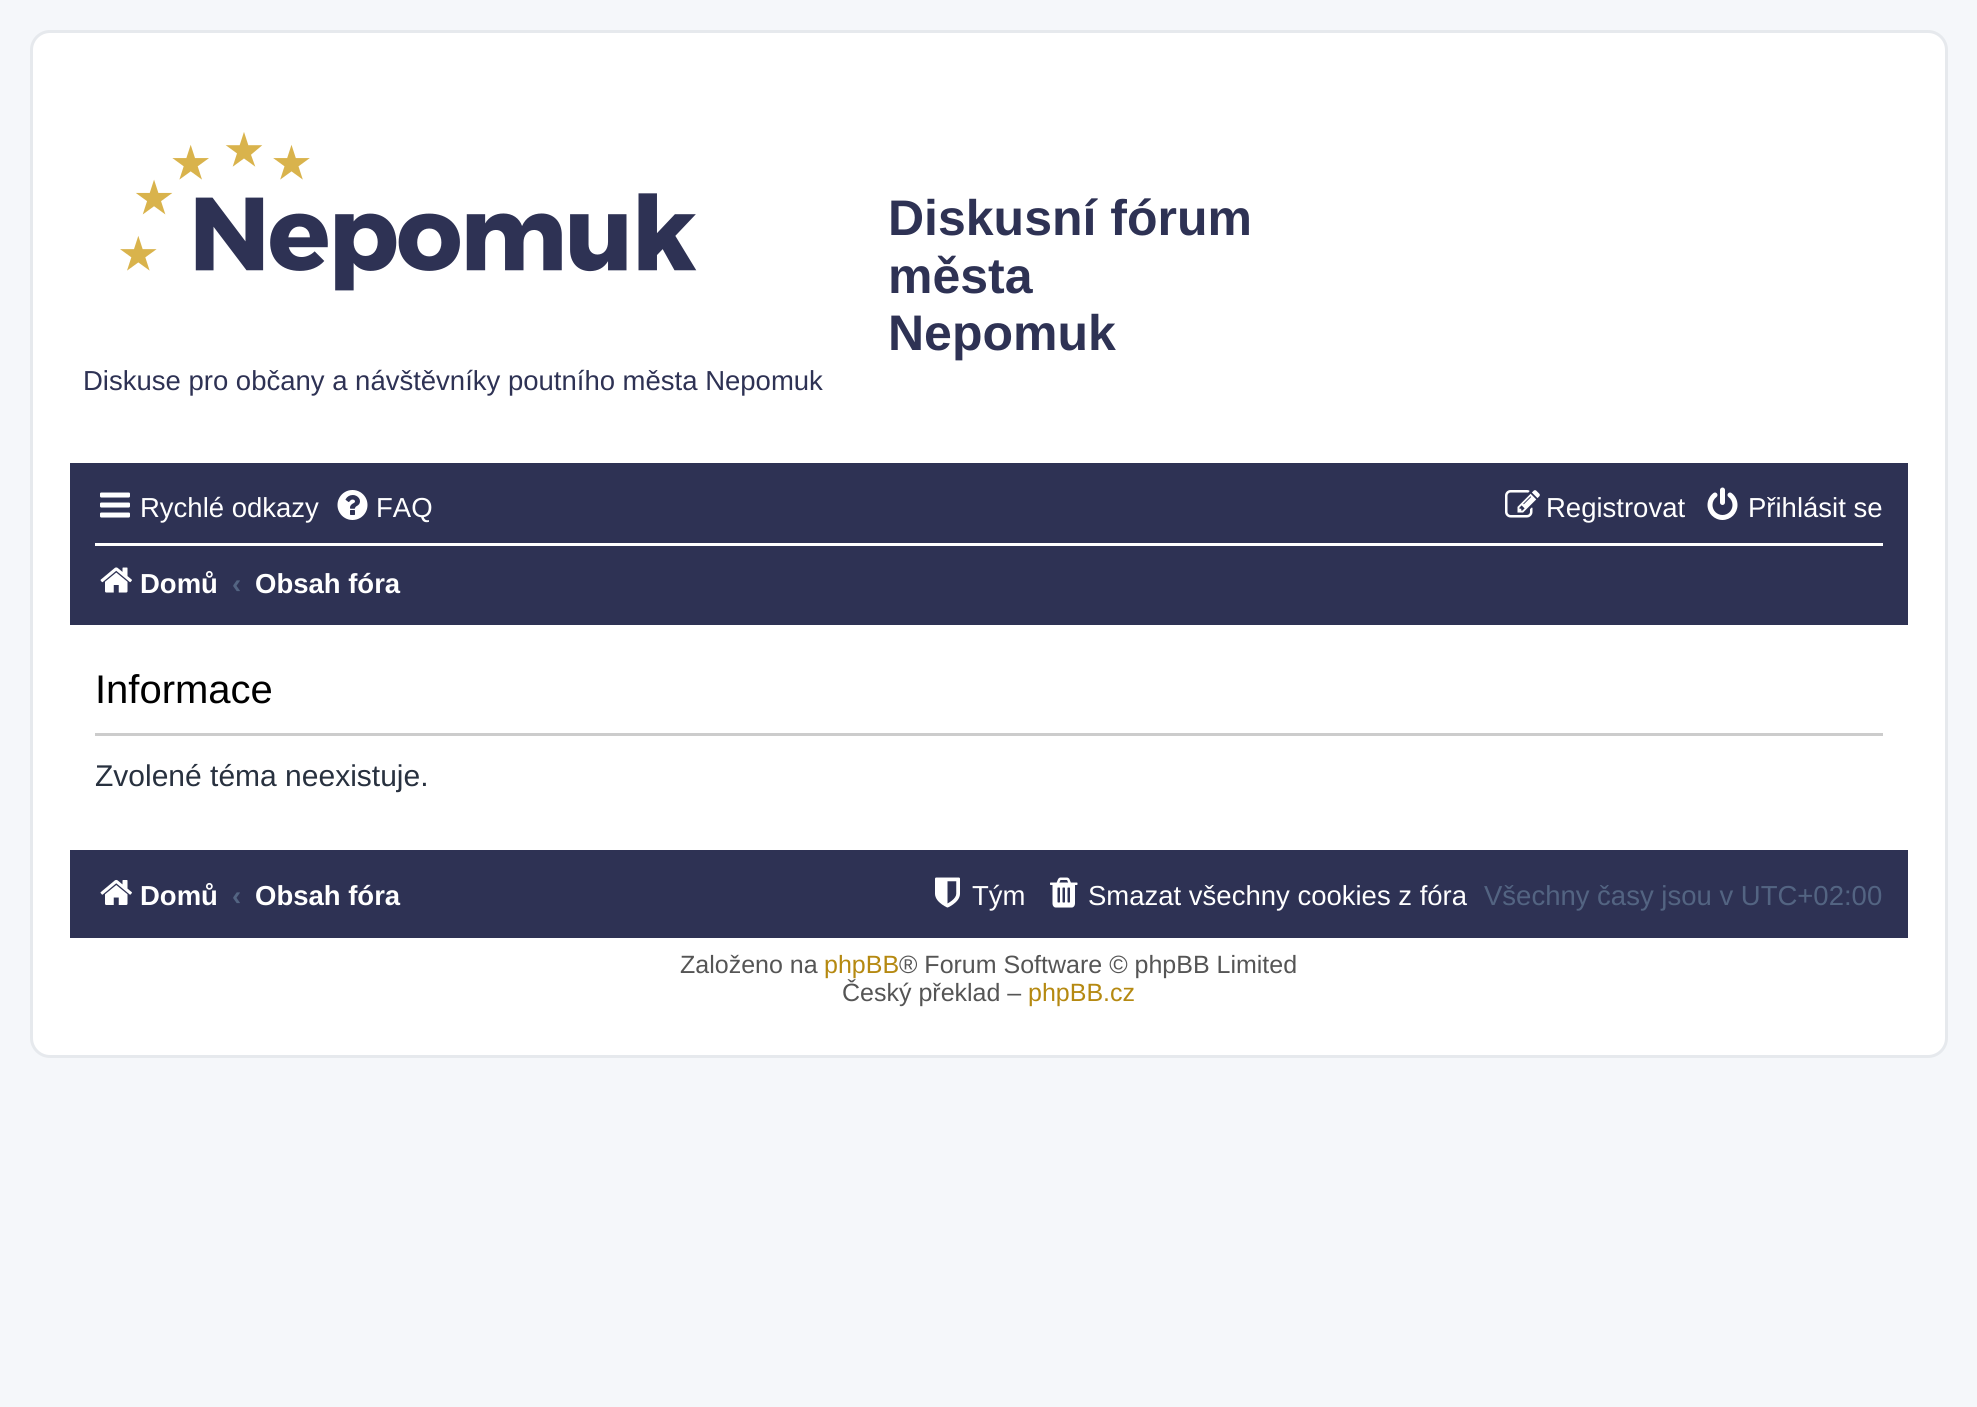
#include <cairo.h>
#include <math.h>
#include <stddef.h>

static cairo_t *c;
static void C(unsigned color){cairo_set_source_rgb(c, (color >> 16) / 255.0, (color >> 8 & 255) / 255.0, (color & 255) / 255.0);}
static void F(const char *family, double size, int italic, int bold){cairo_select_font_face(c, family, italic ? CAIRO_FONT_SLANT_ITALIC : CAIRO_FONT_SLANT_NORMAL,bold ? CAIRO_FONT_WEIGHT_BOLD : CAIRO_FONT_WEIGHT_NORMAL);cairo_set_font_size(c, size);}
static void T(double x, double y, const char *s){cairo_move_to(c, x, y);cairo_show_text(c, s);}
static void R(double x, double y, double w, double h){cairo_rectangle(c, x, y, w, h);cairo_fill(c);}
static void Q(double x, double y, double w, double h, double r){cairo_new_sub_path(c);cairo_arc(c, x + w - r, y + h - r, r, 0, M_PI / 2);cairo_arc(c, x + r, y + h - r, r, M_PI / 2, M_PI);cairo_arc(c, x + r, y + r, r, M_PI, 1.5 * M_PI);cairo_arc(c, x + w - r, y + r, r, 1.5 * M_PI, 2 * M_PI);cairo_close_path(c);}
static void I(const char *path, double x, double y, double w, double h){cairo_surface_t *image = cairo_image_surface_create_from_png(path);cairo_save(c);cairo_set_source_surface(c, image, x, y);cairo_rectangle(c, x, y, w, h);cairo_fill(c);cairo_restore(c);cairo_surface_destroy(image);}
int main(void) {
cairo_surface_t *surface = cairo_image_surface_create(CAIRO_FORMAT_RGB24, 1977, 1407);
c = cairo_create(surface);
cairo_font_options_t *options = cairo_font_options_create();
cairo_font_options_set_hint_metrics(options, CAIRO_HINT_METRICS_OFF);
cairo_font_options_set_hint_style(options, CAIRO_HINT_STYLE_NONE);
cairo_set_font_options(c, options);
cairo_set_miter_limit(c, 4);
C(0xf5f7fa);
cairo_paint(c);
C(0xffffff);
Q(31.5,31.5,1915,1025,18.5);
cairo_fill_preserve(c);
C(0xe6e9ed);
cairo_set_line_width(c,3);
cairo_stroke(c);
I("1.png",120,132,577,159);
F("Liberation Sans",50,0,1);
C(0x2e3254);
T(888,235,"Diskusní fórum");
T(888,293,"města");
T(888,350,"Nepomuk");
F("Liberation Sans",27.5,0,0);
T(83,390,"Diskuse pro občany a návštěvníky poutního města Nepomuk");
R(70,463,1838,162);
I("2.png",100,492,30,26);
C(0xffffff);
T(140,517,"Rychlé odkazy");
I("3.png",337,490,31,30);
T(376,517,"FAQ");
I("4.png",1505,490,35,28);
T(1546,517,"Registrovat");
I("5.png",1707,487,31,33);
T(1748,517,"Přihlásit se");
R(95,543,1788,3);
I("6.png",100,567,32,26);
F("Liberation Sans",27.5,0,1);
T(140,593,"Domů");
C(0x536482);
T(232,593,"‹");
C(0xffffff);
T(255,593,"Obsah fóra");
C(0xcccccc);
R(95,733,1788,3);
F("Liberation Sans",40,0,0);
C(0x000000);
T(95,703,"Informace");
F("Liberation Sans",30,0,0);
C(0x28313f);
T(95,786,"Zvolené téma neexistuje.");
C(0x2e3254);
R(70,850,1838,88);
I("7.png",100,879,32,26);
F("Liberation Sans",27.5,0,1);
C(0xffffff);
T(140,905,"Domů");
C(0x536482);
T(232,905,"‹");
C(0xffffff);
T(255,905,"Obsah fóra");
I("8.png",935,877,25,31);
F("Liberation Sans",27.5,0,0);
T(972,905,"Tým");
I("9.png",1050,877,28,31);
T(1088,905,"Smazat všechny cookies z fóra");
C(0x536482);
T(1484,905,"Všechny časy jsou v UTC+02:00");
F("Liberation Sans",25,0,0);
C(0x555555);
T(680,973,"Založeno na");
C(0xb58911);
T(824,973,"phpBB");
C(0x555555);
T(899,973,"® Forum Software © phpBB Limited");
T(842,1001,"Český překlad –");
C(0xb58911);
T(1028,1001,"phpBB.cz");
cairo_surface_write_to_png(surface, "o.png");
cairo_font_options_destroy(options);
cairo_destroy(c);
cairo_surface_destroy(surface);
return 0;
}
